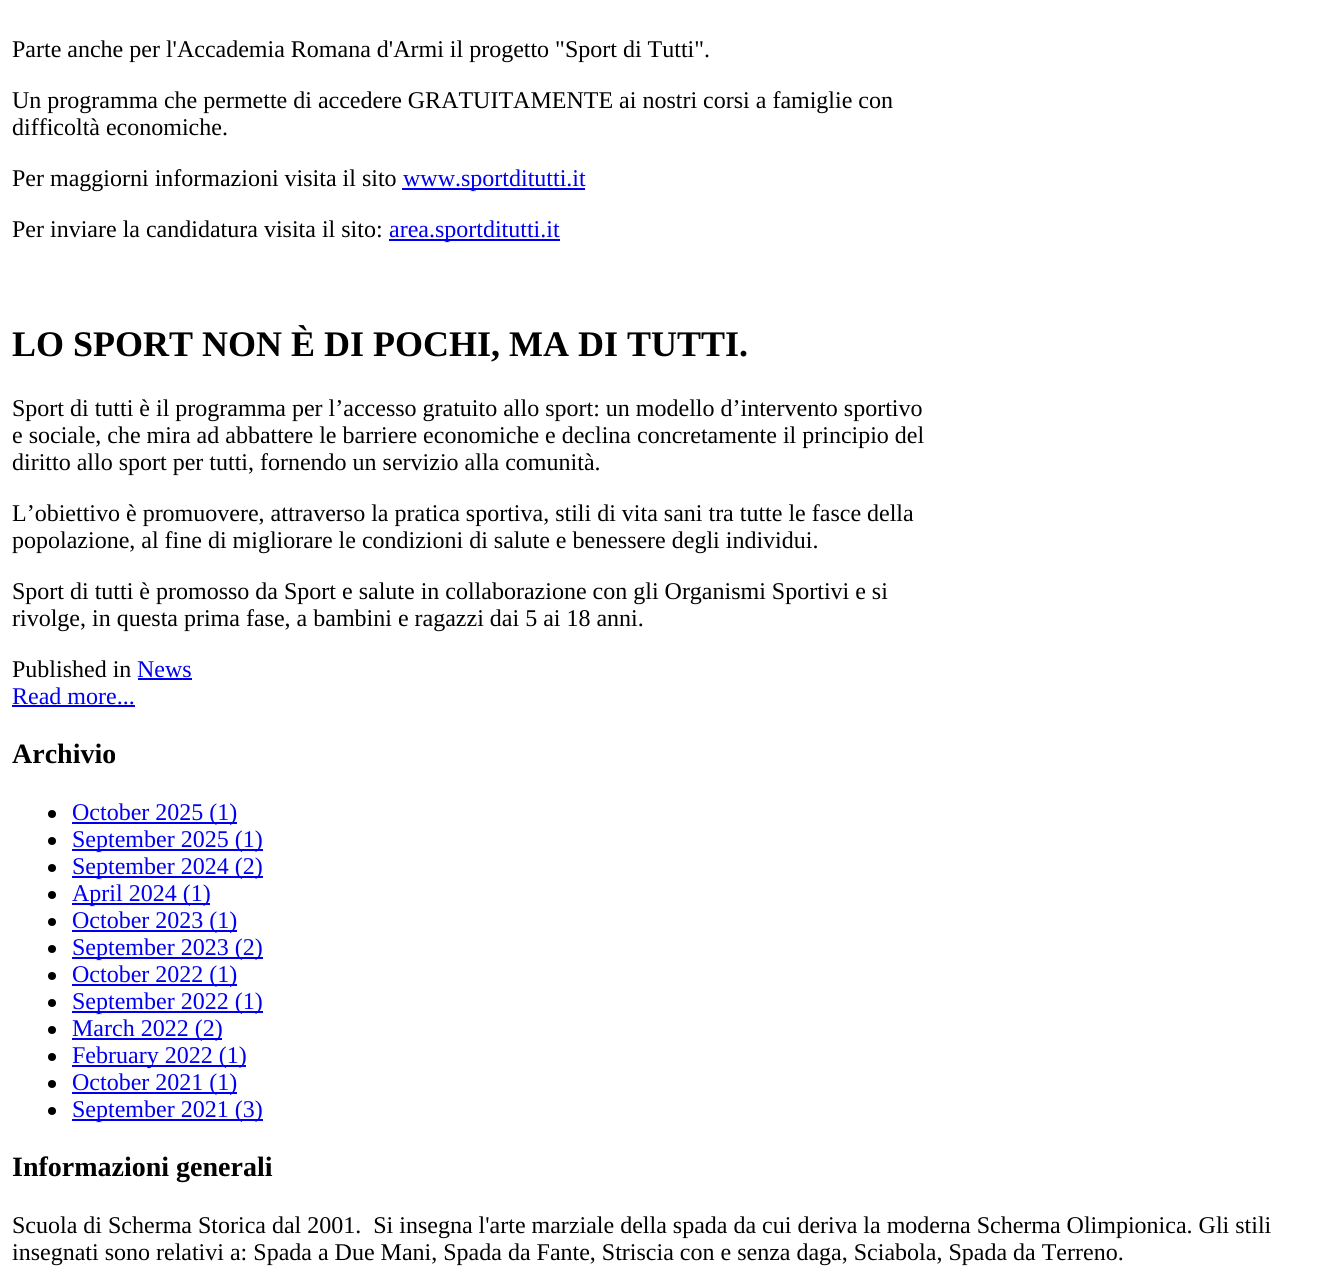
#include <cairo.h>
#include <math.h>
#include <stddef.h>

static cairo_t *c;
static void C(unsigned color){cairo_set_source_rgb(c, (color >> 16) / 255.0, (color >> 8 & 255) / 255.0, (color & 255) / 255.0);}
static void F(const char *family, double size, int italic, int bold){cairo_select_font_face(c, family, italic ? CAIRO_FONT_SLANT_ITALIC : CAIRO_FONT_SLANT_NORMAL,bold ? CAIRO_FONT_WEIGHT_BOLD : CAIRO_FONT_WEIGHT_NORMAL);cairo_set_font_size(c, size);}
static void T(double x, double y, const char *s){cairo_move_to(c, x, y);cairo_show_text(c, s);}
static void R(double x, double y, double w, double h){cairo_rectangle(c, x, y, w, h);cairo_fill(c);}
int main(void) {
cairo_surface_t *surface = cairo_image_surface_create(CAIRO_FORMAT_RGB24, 1335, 1280);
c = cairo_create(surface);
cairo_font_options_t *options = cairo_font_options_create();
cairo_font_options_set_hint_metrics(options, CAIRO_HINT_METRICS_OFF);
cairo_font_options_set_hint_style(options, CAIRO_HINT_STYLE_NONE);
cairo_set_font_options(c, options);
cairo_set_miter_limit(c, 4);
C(0xffffff);
cairo_paint(c);
F("Liberation Serif",24,0,0);
C(0x000000);
T(12,57,"Parte anche per l'Accademia Romana d'Armi il progetto \"Sport di Tutti\".");
T(12,108,"Un programma che permette di accedere GRATUITAMENTE ai nostri corsi a famiglie con");
T(12,135,"difficoltà economiche.");
T(12,186,"Per maggiorni informazioni visita il sito");
C(0x0000ee);
R(402,188,183,2);
T(403,186,"www.sportditutti.it");
C(0x000000);
T(12,237,"Per inviare la candidatura visita il sito:");
C(0x0000ee);
R(389,239,171,2);
T(389,237,"area.sportditutti.it");
F("Liberation Serif",36,0,1);
C(0x000000);
T(12,356,"LO SPORT NON È DI POCHI, MA DI TUTTI.");
F("Liberation Serif",24,0,0);
T(12,416,"Sport di tutti è il programma per l’accesso gratuito allo sport: un modello d’intervento sportivo");
T(12,443,"e sociale, che mira ad abbattere le barriere economiche e declina concretamente il principio del");
T(12,470,"diritto allo sport per tutti, fornendo un servizio alla comunità.");
T(12,521,"L’obiettivo è promuovere, attraverso la pratica sportiva, stili di vita sani tra tutte le fasce della");
T(12,548,"popolazione, al fine di migliorare le condizioni di salute e benessere degli individui.");
T(12,599,"Sport di tutti è promosso da Sport e salute in collaborazione con gli Organismi Sportivi e si");
T(12,626,"rivolge, in questa prima fase, a bambini e ragazzi dai 5 ai 18 anni.");
T(12,677,"Published in");
C(0x0000ee);
T(137,677,"News");
R(138,678,54,2);
T(12,704,"Read more...");
R(12,705,123,2);
F("Liberation Serif",28,0,1);
C(0x000000);
T(12,763,"Archivio");
cairo_new_path(c);
cairo_arc(c,52,814,4,0,2 * M_PI);
cairo_fill(c);
C(0x0000ee);
R(72,822,165,2);
F("Liberation Serif",24,0,0);
T(72,820,"October 2025 (1)");
C(0x000000);
cairo_new_path(c);
cairo_arc(c,52,841,4,0,2 * M_PI);
cairo_fill(c);
C(0x0000ee);
R(72,849,191,2);
T(72,847,"September 2025 (1)");
C(0x000000);
cairo_new_path(c);
cairo_arc(c,52,868,4,0,2 * M_PI);
cairo_fill(c);
C(0x0000ee);
R(72,876,191,2);
T(72,874,"September 2024 (2)");
C(0x000000);
cairo_new_path(c);
cairo_arc(c,52,895,4,0,2 * M_PI);
cairo_fill(c);
C(0x0000ee);
R(72,903,138,2);
T(72,901,"April 2024 (1)");
C(0x000000);
cairo_new_path(c);
cairo_arc(c,52,922,4,0,2 * M_PI);
cairo_fill(c);
C(0x0000ee);
R(72,930,165,2);
T(72,928,"October 2023 (1)");
C(0x000000);
cairo_new_path(c);
cairo_arc(c,52,949,4,0,2 * M_PI);
cairo_fill(c);
C(0x0000ee);
R(72,957,191,2);
T(72,955,"September 2023 (2)");
C(0x000000);
cairo_new_path(c);
cairo_arc(c,52,976,4,0,2 * M_PI);
cairo_fill(c);
C(0x0000ee);
R(72,984,165,2);
T(72,982,"October 2022 (1)");
C(0x000000);
cairo_new_path(c);
cairo_arc(c,52,1003,4,0,2 * M_PI);
cairo_fill(c);
C(0x0000ee);
R(72,1011,191,2);
T(72,1009,"September 2022 (1)");
C(0x000000);
cairo_new_path(c);
cairo_arc(c,52,1030,4,0,2 * M_PI);
cairo_fill(c);
C(0x0000ee);
R(72,1038,150,2);
T(72,1036,"March 2022 (2)");
C(0x000000);
cairo_new_path(c);
cairo_arc(c,52,1057,4,0,2 * M_PI);
cairo_fill(c);
C(0x0000ee);
R(72,1065,174,2);
T(72,1063,"February 2022 (1)");
C(0x000000);
cairo_new_path(c);
cairo_arc(c,52,1084,4,0,2 * M_PI);
cairo_fill(c);
C(0x0000ee);
R(72,1092,165,2);
T(72,1090,"October 2021 (1)");
C(0x000000);
cairo_new_path(c);
cairo_arc(c,52,1111,4,0,2 * M_PI);
cairo_fill(c);
C(0x0000ee);
R(72,1119,191,2);
T(72,1117,"September 2021 (3)");
F("Liberation Serif",28,0,1);
C(0x000000);
T(12,1176,"Informazioni generali");
F("Liberation Serif",24,0,0);
T(12,1233,"Scuola di Scherma Storica dal 2001.  Si insegna l'arte marziale della spada da cui deriva la moderna Scherma Olimpionica. Gli stili");
T(12,1260,"insegnati sono relativi a: Spada a Due Mani, Spada da Fante, Striscia con e senza daga, Sciabola, Spada da Terreno.");
cairo_surface_write_to_png(surface, "o.png");
cairo_font_options_destroy(options);
cairo_destroy(c);
cairo_surface_destroy(surface);
return 0;
}
